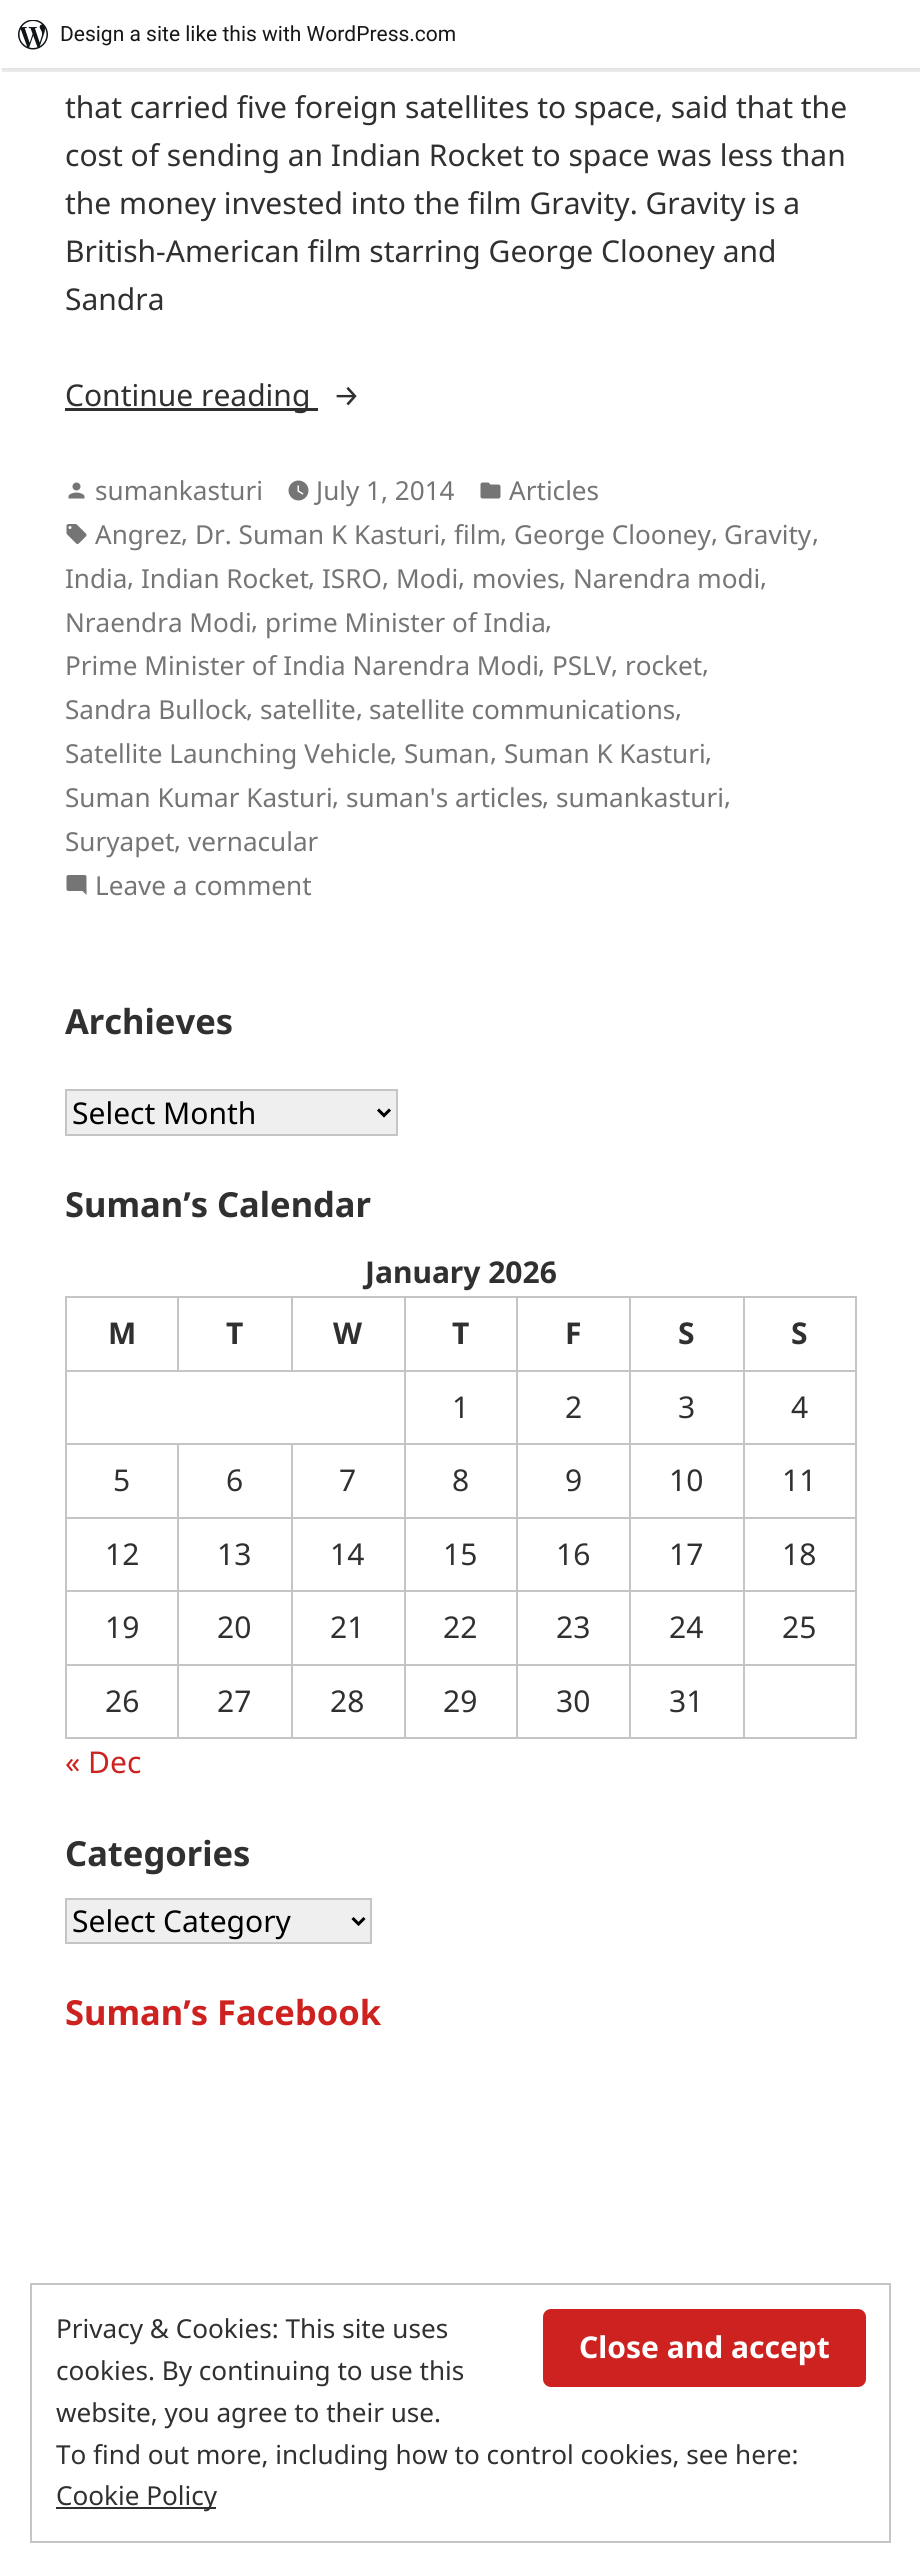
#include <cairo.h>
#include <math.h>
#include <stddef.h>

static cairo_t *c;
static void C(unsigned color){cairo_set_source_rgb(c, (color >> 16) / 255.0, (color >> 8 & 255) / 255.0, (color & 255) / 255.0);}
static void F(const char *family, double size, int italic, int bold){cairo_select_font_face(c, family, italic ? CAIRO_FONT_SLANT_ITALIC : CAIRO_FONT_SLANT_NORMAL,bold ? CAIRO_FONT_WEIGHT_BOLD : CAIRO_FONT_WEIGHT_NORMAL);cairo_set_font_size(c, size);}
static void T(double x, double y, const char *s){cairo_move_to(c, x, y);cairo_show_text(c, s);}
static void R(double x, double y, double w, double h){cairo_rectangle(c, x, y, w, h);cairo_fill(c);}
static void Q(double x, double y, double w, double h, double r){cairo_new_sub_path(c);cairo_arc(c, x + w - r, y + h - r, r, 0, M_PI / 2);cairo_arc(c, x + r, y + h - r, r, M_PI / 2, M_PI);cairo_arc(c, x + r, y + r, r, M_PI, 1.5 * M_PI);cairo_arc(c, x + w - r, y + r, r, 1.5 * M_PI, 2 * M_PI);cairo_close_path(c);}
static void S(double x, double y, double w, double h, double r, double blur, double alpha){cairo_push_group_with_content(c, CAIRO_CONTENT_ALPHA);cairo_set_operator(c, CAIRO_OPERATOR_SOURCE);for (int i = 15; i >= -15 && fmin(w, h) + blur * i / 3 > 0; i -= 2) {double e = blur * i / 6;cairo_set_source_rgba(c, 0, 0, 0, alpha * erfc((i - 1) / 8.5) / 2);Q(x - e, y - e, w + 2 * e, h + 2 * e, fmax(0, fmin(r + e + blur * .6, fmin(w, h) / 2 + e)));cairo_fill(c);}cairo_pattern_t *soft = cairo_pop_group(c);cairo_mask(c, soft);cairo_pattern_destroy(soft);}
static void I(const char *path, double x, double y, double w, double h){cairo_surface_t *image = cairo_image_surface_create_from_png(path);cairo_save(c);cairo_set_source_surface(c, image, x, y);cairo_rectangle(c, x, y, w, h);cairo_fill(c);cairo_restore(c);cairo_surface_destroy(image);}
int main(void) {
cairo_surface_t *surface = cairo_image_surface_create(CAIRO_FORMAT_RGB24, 920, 2572);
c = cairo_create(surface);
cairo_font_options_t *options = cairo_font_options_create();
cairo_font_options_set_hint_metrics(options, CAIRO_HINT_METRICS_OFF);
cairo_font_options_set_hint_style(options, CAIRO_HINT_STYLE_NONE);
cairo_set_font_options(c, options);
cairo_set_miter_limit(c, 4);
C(0xffffff);
cairo_paint(c);
C(0x000000);
S(0,2,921,67,0,1.5,.05);
cairo_set_source_rgba(c,0,0,0,0.08);
cairo_new_path(c);
cairo_move_to(c,2,68);
cairo_line_to(c,2,72);
cairo_line_to(c,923,72);
cairo_line_to(c,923,5);
cairo_line_to(c,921,5);
cairo_line_to(c,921,68);
cairo_close_path(c);
cairo_fill(c);
C(0xffffff);
R(0,1,920,67);
I("1.png",18,20,30,30);
F("Roboto",21,0,0);
C(0x171717);
T(60,41,"Design a site like this with WordPress.com");
F("Noto Sans",30,0,0);
C(0x303030);
T(65,118,"that carried five foreign satellites to space, said that the");
T(65,166,"cost of sending an Indian Rocket to space was less than");
T(65,214,"the money invested into the film Gravity. Gravity is a");
T(65,262,"British-American film starring George Clooney and");
T(65,310,"Sandra");
R(65,408,253,3);
T(65,406,"Continue reading");
F("Fira Sans",30,0,0);
T(333,406,"→");
I("2.png",68,482,17,17);
F("Noto Sans",26.1,0,0);
C(0x757575);
T(95,500,"sumankasturi");
I("3.png",288,480,21,21);
T(316,500,"July 1, 2014");
I("4.png",480,482,21,17);
T(509,500,"Articles");
I("5.png",66,524,21,20);
T(95,544,"Angrez");
T(181,542,",");
T(195,544,"Dr. Suman K Kasturi");
T(440,542,",");
T(454,544,"film");
T(500,542,",");
T(514,544,"George Clooney");
T(711,542,",");
T(724,544,"Gravity");
T(812,542,",");
T(65,588,"India");
T(127,586,",");
T(141,588,"Indian Rocket");
T(308,586,",");
T(322,588,"ISRO");
T(382,586,",");
T(396,588,"Modi");
T(458,586,",");
T(472,588,"movies");
T(559,586,",");
T(573,588,"Narendra modi");
T(760,586,",");
T(65,632,"Nraendra Modi");
T(251,629,",");
T(265,632,"prime Minister of India");
T(545,629,",");
T(65,675,"Prime Minister of India Narendra Modi");
T(538,673,",");
T(552,675,"PSLV");
T(611,673,",");
T(625,675,"rocket");
T(702,673,",");
T(65,719,"Sandra Bullock");
T(246,717,",");
T(260,719,"satellite");
T(356,717,",");
T(369,719,"satellite communications");
T(675,717,",");
T(65,763,"Satellite Launching Vehicle");
T(390,761,",");
T(404,763,"Suman");
T(490,761,",");
T(504,763,"Suman K Kasturi");
T(705,761,",");
T(65,807,"Suman Kumar Kasturi");
T(332,805,",");
T(346,807,"suman's articles");
T(542,805,",");
T(556,807,"sumankasturi");
T(724,805,",");
T(65,851,"Suryapet");
T(174,849,",");
T(188,851,"vernacular");
I("6.png",66,875,21,20);
T(95,895,"Leave a comment");
F("Noto Sans",34.5,0,1);
C(0x303030);
T(65,1034,"Archieves");
C(0xefefef);
cairo_rectangle(c,66,1090,331,45);
cairo_fill_preserve(c);
C(0xc5c5c5);
cairo_stroke(c);
cairo_new_path(c);
cairo_move_to(c,378,1109.5);
cairo_line_to(c,384,1115.5);
cairo_line_to(c,390,1109.5);
C(0x000000);
cairo_set_line_width(c,3);
cairo_stroke(c);
F("Noto Sans",30,0,0);
T(72,1124,"Select Month");
F("Noto Sans",34.5,0,1);
C(0x303030);
T(65,1217,"Suman’s Calendar");
F("Noto Sans",30,0,1);
T(365,1283,"January 2026");
C(0xc5c5c5);
R(743,1296,114,2);
R(743,1370,114,2);
R(743,1443,114,2);
R(743,1517,114,2);
R(743,1590,114,2);
R(743,1664,114,2);
R(855,1664,2,75);
R(743,1737,114,2);
R(743,1664,2,75);
R(629,1664,115,2);
R(743,1590,2,75);
R(629,1590,115,2);
R(743,1517,2,75);
R(629,1517,115,2);
R(743,1443,2,75);
R(629,1443,115,2);
R(743,1370,2,75);
R(629,1370,115,2);
R(743,1296,2,75);
R(629,1296,115,2);
R(629,1737,115,2);
R(629,1664,2,75);
R(516,1664,114,2);
R(629,1590,2,75);
R(516,1590,114,2);
R(629,1517,2,75);
R(516,1517,114,2);
R(629,1443,2,75);
R(516,1443,114,2);
R(629,1370,2,75);
R(516,1370,114,2);
R(629,1296,2,75);
R(516,1296,114,2);
R(516,1737,114,2);
R(516,1664,2,75);
R(404,1664,114,2);
R(516,1590,2,75);
R(404,1590,114,2);
R(516,1517,2,75);
R(404,1517,114,2);
R(516,1443,2,75);
R(404,1443,114,2);
R(516,1370,2,75);
R(404,1370,114,2);
R(516,1296,2,75);
R(404,1296,114,2);
R(404,1737,114,2);
R(404,1664,2,75);
R(291,1664,114,2);
R(404,1590,2,75);
R(291,1590,114,2);
R(404,1517,2,75);
R(291,1517,114,2);
R(404,1443,2,75);
R(291,1443,114,2);
R(404,1370,2,75);
R(65,1370,340,2);
R(404,1296,2,75);
R(291,1296,114,2);
R(291,1296,2,75);
R(177,1296,116,2);
R(177,1296,2,75);
R(65,1296,114,2);
R(291,1737,114,2);
R(291,1664,2,75);
R(177,1664,116,2);
R(291,1590,2,75);
R(177,1590,116,2);
R(291,1517,2,75);
R(177,1517,116,2);
R(291,1443,2,75);
R(177,1443,116,2);
R(177,1737,116,2);
R(177,1664,2,75);
R(65,1664,114,2);
R(177,1590,2,75);
R(65,1590,114,2);
R(177,1517,2,75);
R(65,1517,114,2);
R(177,1443,2,75);
R(65,1443,114,2);
R(65,1737,114,2);
R(65,1664,2,75);
R(65,1590,2,75);
R(65,1517,2,75);
R(65,1443,2,75);
R(65,1370,2,75);
R(65,1296,2,75);
C(0x303030);
T(108,1344,"M");
T(226,1344,"T");
T(333,1344,"W");
T(452,1344,"T");
T(565,1344,"F");
T(678,1344,"S");
C(0xc5c5c5);
R(855,1590,2,75);
R(855,1517,2,75);
R(855,1443,2,75);
R(855,1370,2,75);
R(855,1296,2,75);
C(0x303030);
T(791,1344,"S");
F("Noto Sans",30,0,0);
T(452,1418,"1");
T(565,1418,"2");
T(678,1418,"3");
T(791,1418,"4");
T(113,1491,"5");
T(226,1491,"6");
T(339,1491,"7");
T(452,1491,"8");
T(565,1491,"9");
T(669,1491,"10");
T(782,1491,"11");
T(105,1565,"12");
T(217,1565,"13");
T(330,1565,"14");
T(443,1565,"15");
T(556,1565,"16");
T(669,1565,"17");
T(782,1565,"18");
T(105,1638,"19");
T(217,1638,"20");
T(330,1638,"21");
T(443,1638,"22");
T(556,1638,"23");
T(669,1638,"24");
T(782,1638,"25");
T(105,1712,"26");
T(217,1712,"27");
T(330,1712,"28");
T(443,1712,"29");
T(556,1712,"30");
T(669,1712,"31");
C(0xcd2220);
T(65,1773,"« Dec");
F("Noto Sans",34.5,0,1);
C(0x303030);
T(65,1866,"Categories");
C(0xefefef);
cairo_rectangle(c,66,1899,305,44);
cairo_fill_preserve(c);
C(0xc5c5c5);
cairo_set_line_width(c,2);
cairo_stroke(c);
cairo_new_path(c);
cairo_move_to(c,352.5,1918);
cairo_line_to(c,358.5,1924);
cairo_line_to(c,364.5,1918);
C(0x000000);
cairo_set_line_width(c,3);
cairo_stroke(c);
F("Noto Sans",30,0,0);
T(72,1932,"Select Category");
F("Noto Sans",34.5,0,1);
C(0xcd2220);
T(65,2025,"Suman’s Facebook");
cairo_rectangle(c,31,2284,859,258);
C(0xc5c5c5);
cairo_set_line_width(c,2);
cairo_stroke(c);
F("Noto Sans",26.1,0,0);
C(0x303030);
T(56,2338,"Privacy & Cookies: This site uses");
C(0xcd2220);
Q(543,2309,323,78,8);
cairo_fill(c);
F("Noto Sans",30,0,1);
C(0xffffff);
T(579,2358,"Close and accept");
F("Noto Sans",26.1,0,0);
C(0x303030);
T(56,2380,"cookies. By continuing to use this");
T(56,2422,"website, you agree to their use.");
T(56,2464,"To find out more, including how to control cookies, see here:");
R(56,2507,160,2);
T(56,2505,"Cookie Policy");
cairo_surface_write_to_png(surface, "o.png");
cairo_font_options_destroy(options);
cairo_destroy(c);
cairo_surface_destroy(surface);
return 0;
}
